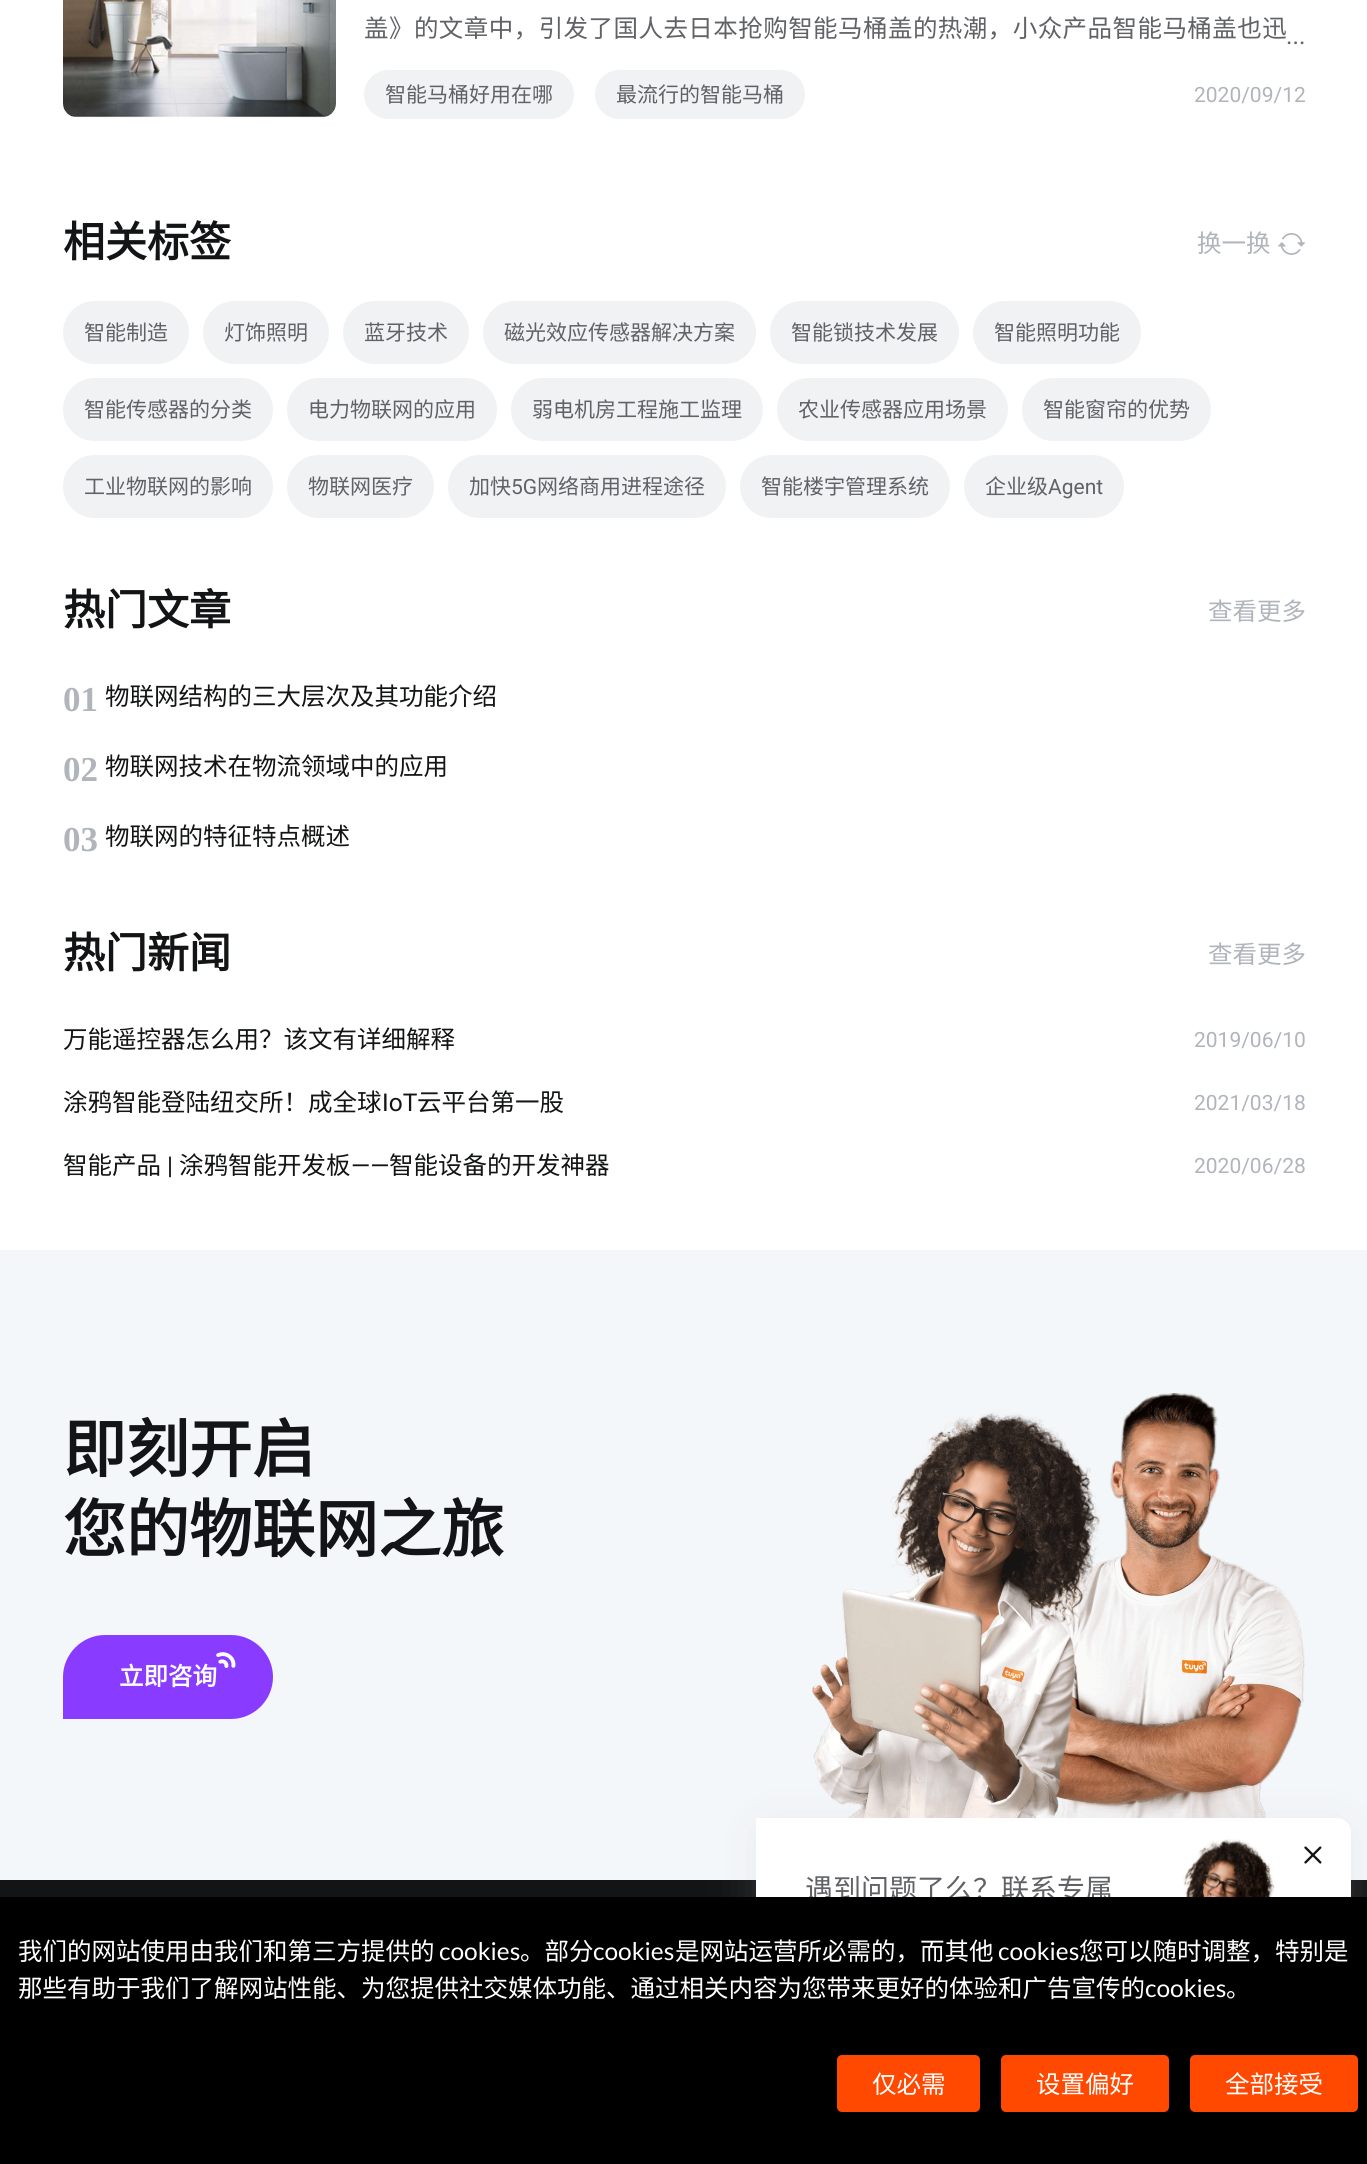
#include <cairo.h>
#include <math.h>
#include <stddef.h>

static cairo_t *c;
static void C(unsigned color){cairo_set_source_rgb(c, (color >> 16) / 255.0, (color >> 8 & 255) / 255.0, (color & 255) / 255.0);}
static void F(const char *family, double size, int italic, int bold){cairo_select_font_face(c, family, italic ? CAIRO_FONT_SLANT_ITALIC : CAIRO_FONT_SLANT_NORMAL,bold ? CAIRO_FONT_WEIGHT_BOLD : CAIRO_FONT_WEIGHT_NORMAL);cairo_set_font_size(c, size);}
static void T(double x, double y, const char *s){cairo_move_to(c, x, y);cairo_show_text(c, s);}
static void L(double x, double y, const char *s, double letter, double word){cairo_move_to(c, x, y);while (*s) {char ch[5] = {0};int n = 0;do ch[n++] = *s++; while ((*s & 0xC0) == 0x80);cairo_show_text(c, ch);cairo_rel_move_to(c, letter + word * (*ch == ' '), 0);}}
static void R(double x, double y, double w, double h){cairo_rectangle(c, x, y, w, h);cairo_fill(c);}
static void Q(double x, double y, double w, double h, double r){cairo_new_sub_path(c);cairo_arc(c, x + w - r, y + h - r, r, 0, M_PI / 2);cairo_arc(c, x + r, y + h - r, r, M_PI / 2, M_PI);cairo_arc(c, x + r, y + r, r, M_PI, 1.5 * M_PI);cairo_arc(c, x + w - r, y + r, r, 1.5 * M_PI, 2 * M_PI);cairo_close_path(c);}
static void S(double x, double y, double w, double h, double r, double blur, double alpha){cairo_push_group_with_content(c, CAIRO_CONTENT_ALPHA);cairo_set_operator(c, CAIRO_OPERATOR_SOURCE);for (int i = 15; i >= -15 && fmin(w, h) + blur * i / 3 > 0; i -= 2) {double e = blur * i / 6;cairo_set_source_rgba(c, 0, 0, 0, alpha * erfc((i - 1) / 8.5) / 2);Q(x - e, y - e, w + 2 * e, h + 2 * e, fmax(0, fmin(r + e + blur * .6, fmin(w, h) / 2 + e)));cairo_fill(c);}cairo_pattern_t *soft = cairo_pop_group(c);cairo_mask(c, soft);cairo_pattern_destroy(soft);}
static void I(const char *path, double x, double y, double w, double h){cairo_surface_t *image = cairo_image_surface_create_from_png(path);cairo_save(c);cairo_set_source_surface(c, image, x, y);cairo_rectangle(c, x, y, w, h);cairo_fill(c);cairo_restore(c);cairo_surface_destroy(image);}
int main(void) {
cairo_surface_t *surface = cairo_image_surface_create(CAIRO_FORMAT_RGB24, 1367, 2164);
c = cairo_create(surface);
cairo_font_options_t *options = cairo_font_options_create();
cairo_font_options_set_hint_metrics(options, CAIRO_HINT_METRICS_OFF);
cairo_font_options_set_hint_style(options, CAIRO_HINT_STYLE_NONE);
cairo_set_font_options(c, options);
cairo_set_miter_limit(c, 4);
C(0xffffff);
cairo_paint(c);
I("1.png",63,0,273,118);
F("Noto Sans CJK SC",24.5,0,0);
C(0x606266);
L(364,37,"盖》的文章中，引发了国人去日本抢购智能马桶盖的热潮，小众产品智能马桶盖也迅",.45,0);
F("Roboto",24.5,0,0);
T(1286,44,"...");
C(0xf0f2f4);
Q(364,70,210,49,24.5);
cairo_fill(c);
F("Noto Sans CJK SC",21,0,0);
C(0x606266);
T(385,102,"智能马桶好用在哪");
C(0xf0f2f4);
Q(595,70,210,49,24.5);
cairo_fill(c);
C(0x606266);
T(616,102,"最流行的智能马桶");
F("Roboto",21,0,0);
C(0xb0b4bb);
T(1194,102,"2020/09/12");
F("Noto Sans CJK SC",42,0,1);
C(0x131415);
T(63,257,"相关标签");
F("Noto Sans CJK SC",24.5,0,0);
C(0xb0b4bb);
T(1197,252,"换一换");
I("2.png",1278,233,27,22);
C(0xf0f2f4);
Q(63,301,126,63,31.5);
cairo_fill(c);
F("Noto Sans CJK SC",21,0,0);
C(0x606266);
T(84,340,"智能制造");
C(0xf0f2f4);
Q(203,301,126,63,31.5);
cairo_fill(c);
C(0x606266);
T(224,340,"灯饰照明");
C(0xf0f2f4);
Q(343,301,126,63,31.5);
cairo_fill(c);
C(0x606266);
T(364,340,"蓝牙技术");
C(0xf0f2f4);
Q(483,301,273,63,31.5);
cairo_fill(c);
C(0x606266);
T(504,340,"磁光效应传感器解决方案");
C(0xf0f2f4);
Q(770,301,189,63,31.5);
cairo_fill(c);
C(0x606266);
T(791,340,"智能锁技术发展");
C(0xf0f2f4);
Q(973,301,168,63,31.5);
cairo_fill(c);
C(0x606266);
T(994,340,"智能照明功能");
C(0xf0f2f4);
Q(63,378,210,63,31.5);
cairo_fill(c);
C(0x606266);
T(84,417,"智能传感器的分类");
C(0xf0f2f4);
Q(287,378,210,63,31.5);
cairo_fill(c);
C(0x606266);
T(308,417,"电力物联网的应用");
C(0xf0f2f4);
Q(511,378,252,63,31.5);
cairo_fill(c);
C(0x606266);
T(532,417,"弱电机房工程施工监理");
C(0xf0f2f4);
Q(777,378,231,63,31.5);
cairo_fill(c);
C(0x606266);
T(798,417,"农业传感器应用场景");
C(0xf0f2f4);
Q(1022,378,189,63,31.5);
cairo_fill(c);
C(0x606266);
T(1043,417,"智能窗帘的优势");
C(0xf0f2f4);
Q(63,455,210,63,31.5);
cairo_fill(c);
C(0x606266);
T(84,494,"工业物联网的影响");
C(0xf0f2f4);
Q(287,455,147,63,31.5);
cairo_fill(c);
C(0x606266);
T(308,494,"物联网医疗");
C(0xf0f2f4);
Q(448,455,278,63,31.5);
cairo_fill(c);
C(0x606266);
T(469,494,"加快");
F("Roboto",21,0,0);
T(511,494,"5G");
F("Noto Sans CJK SC",21,0,0);
T(537,494,"网络商用进程途径");
C(0xf0f2f4);
Q(740,455,210,63,31.5);
cairo_fill(c);
C(0x606266);
T(761,494,"智能楼宇管理系统");
C(0xf0f2f4);
Q(964,455,160,63,31.5);
cairo_fill(c);
C(0x606266);
T(985,494,"企业级");
F("Roboto",21,0,0);
T(1048,494,"Agent");
F("Noto Sans CJK SC",42,0,1);
C(0x131415);
T(63,625,"热门文章");
F("Noto Sans CJK SC",24.5,0,0);
C(0xb0b4bb);
T(1208,620,"查看更多");
F("Liberation Serif",35,0,1);
T(63,711,"01");
F("Noto Sans CJK SC",24.5,0,0);
C(0x131415);
T(105,705,"物联网结构的三大层次及其功能介绍");
F("Liberation Serif",35,0,1);
C(0xb0b4bb);
T(63,781,"02");
F("Noto Sans CJK SC",24.5,0,0);
C(0x131415);
T(105,775,"物联网技术在物流领域中的应用");
F("Liberation Serif",35,0,1);
C(0xb0b4bb);
T(63,851,"03");
F("Noto Sans CJK SC",24.5,0,0);
C(0x131415);
T(105,845,"物联网的特征特点概述");
F("Noto Sans CJK SC",42,0,1);
T(63,968,"热门新闻");
F("Noto Sans CJK SC",24.5,0,0);
C(0xb0b4bb);
T(1208,963,"查看更多");
C(0x131415);
T(63,1048,"万能遥控器怎么用？该文有详细解释");
F("Roboto",21,0,0);
C(0xb0b4bb);
T(1194,1047,"2019/06/10");
F("Noto Sans CJK SC",24.5,0,0);
C(0x131415);
T(63,1111,"涂鸦智能登陆纽交所！成全球");
F("Roboto",24.5,0,0);
T(382,1111,"IoT");
F("Noto Sans CJK SC",24.5,0,0);
T(417,1111,"云平台第一股");
F("Roboto",21,0,0);
C(0xb0b4bb);
T(1194,1110,"2021/03/18");
F("Noto Sans CJK SC",24.5,0,0);
C(0x131415);
T(63,1174,"智能产品");
F("Roboto",24.5,0,0);
T(167,1174,"|");
F("Noto Sans CJK SC",24.5,0,0);
T(179,1174,"涂鸦智能开发板");
F("Roboto",24.5,0,0);
T(351,1174,"——");
F("Noto Sans CJK SC",24.5,0,0);
T(389,1174,"智能设备的开发神器");
F("Roboto",21,0,0);
C(0xb0b4bb);
T(1194,1173,"2020/06/28");
C(0xf4f7fa);
R(0,1250,1367,630);
F("Noto Sans CJK SC",63,0,1);
C(0x131415);
T(63,1472,"即刻开启");
T(63,1552,"您的物联网之旅");
C(0x893bff);
cairo_new_path(c);
cairo_move_to(c,105,1635);
cairo_line_to(c,231,1635);
cairo_curve_to(c,254,1635,273,1654,273,1677);
cairo_curve_to(c,273,1700,254,1719,231,1719);
cairo_line_to(c,63,1719);
cairo_line_to(c,63,1677);
cairo_curve_to(c,63,1654,82,1635,105,1635);
cairo_close_path(c);
cairo_fill(c);
I("3.png",216,1652,20,16);
F("Noto Sans CJK SC",24.5,0,1);
C(0xffffff);
T(119,1685,"立即咨询");
I("4.png",812,1393,493,425);
C(0x131415);
R(0,1880,1367,17);
C(0xb8bbc5);
S(756,1822,595,189,14,22,.2);
C(0xffffff);
cairo_new_path(c);
cairo_move_to(c,756,1818);
cairo_line_to(c,1337,1818);
cairo_curve_to(c,1344.5,1818,1351,1824.5,1351,1832);
cairo_line_to(c,1351,2007);
cairo_line_to(c,770,2007);
cairo_curve_to(c,762.5,2007,756,2000.5,756,1993);
cairo_close_path(c);
cairo_fill(c);
I("5.png",1141,1839,210,58);
I("6.png",1304,1846,18,18);
F("Noto Sans CJK SC",28,0,0);
C(0x606266);
T(805,1899,"遇到问题了么？联系专属");
C(0x000000);
R(0,1897,1367,267);
F("Noto Sans CJK SC",24.5,0,0);
C(0xffffff);
T(18,1960,"我们的网站使用由我们和第三方提供的");
F("Lato",24.5,0,0);
T(439,1960,"cookies");
F("Noto Sans CJK SC",24.5,0,0);
T(520,1960,"。部分");
F("Lato",24.5,0,0);
T(593,1960,"cookies");
F("Noto Sans CJK SC",24.5,0,0);
T(675,1960,"是网站运营所必需的，而其他");
F("Lato",24.5,0,0);
T(998,1960,"cookies");
F("Noto Sans CJK SC",24.5,0,0);
T(1079,1960,"您可以随时调整，特别是");
T(18,1997,"那些有助于我们了解网站性能、为您提供社交媒体功能、通过相关内容为您带来更好的体验和广告宣传的");
F("Lato",24.5,0,0);
T(1145,1997,"cookies");
F("Noto Sans CJK SC",24.5,0,0);
T(1226,1997,"。");
C(0xff4800);
Q(837,2055,143,57,5);
cairo_fill(c);
C(0xffffff);
T(872,2093,"仅必需");
C(0xff4800);
Q(1001,2055,168,57,5);
cairo_fill(c);
C(0xffffff);
T(1036,2093,"设置偏好");
C(0xff4800);
Q(1190,2055,168,57,5);
cairo_fill(c);
C(0xffffff);
T(1225,2093,"全部接受");
cairo_surface_write_to_png(surface, "o.png");
cairo_font_options_destroy(options);
cairo_destroy(c);
cairo_surface_destroy(surface);
return 0;
}
